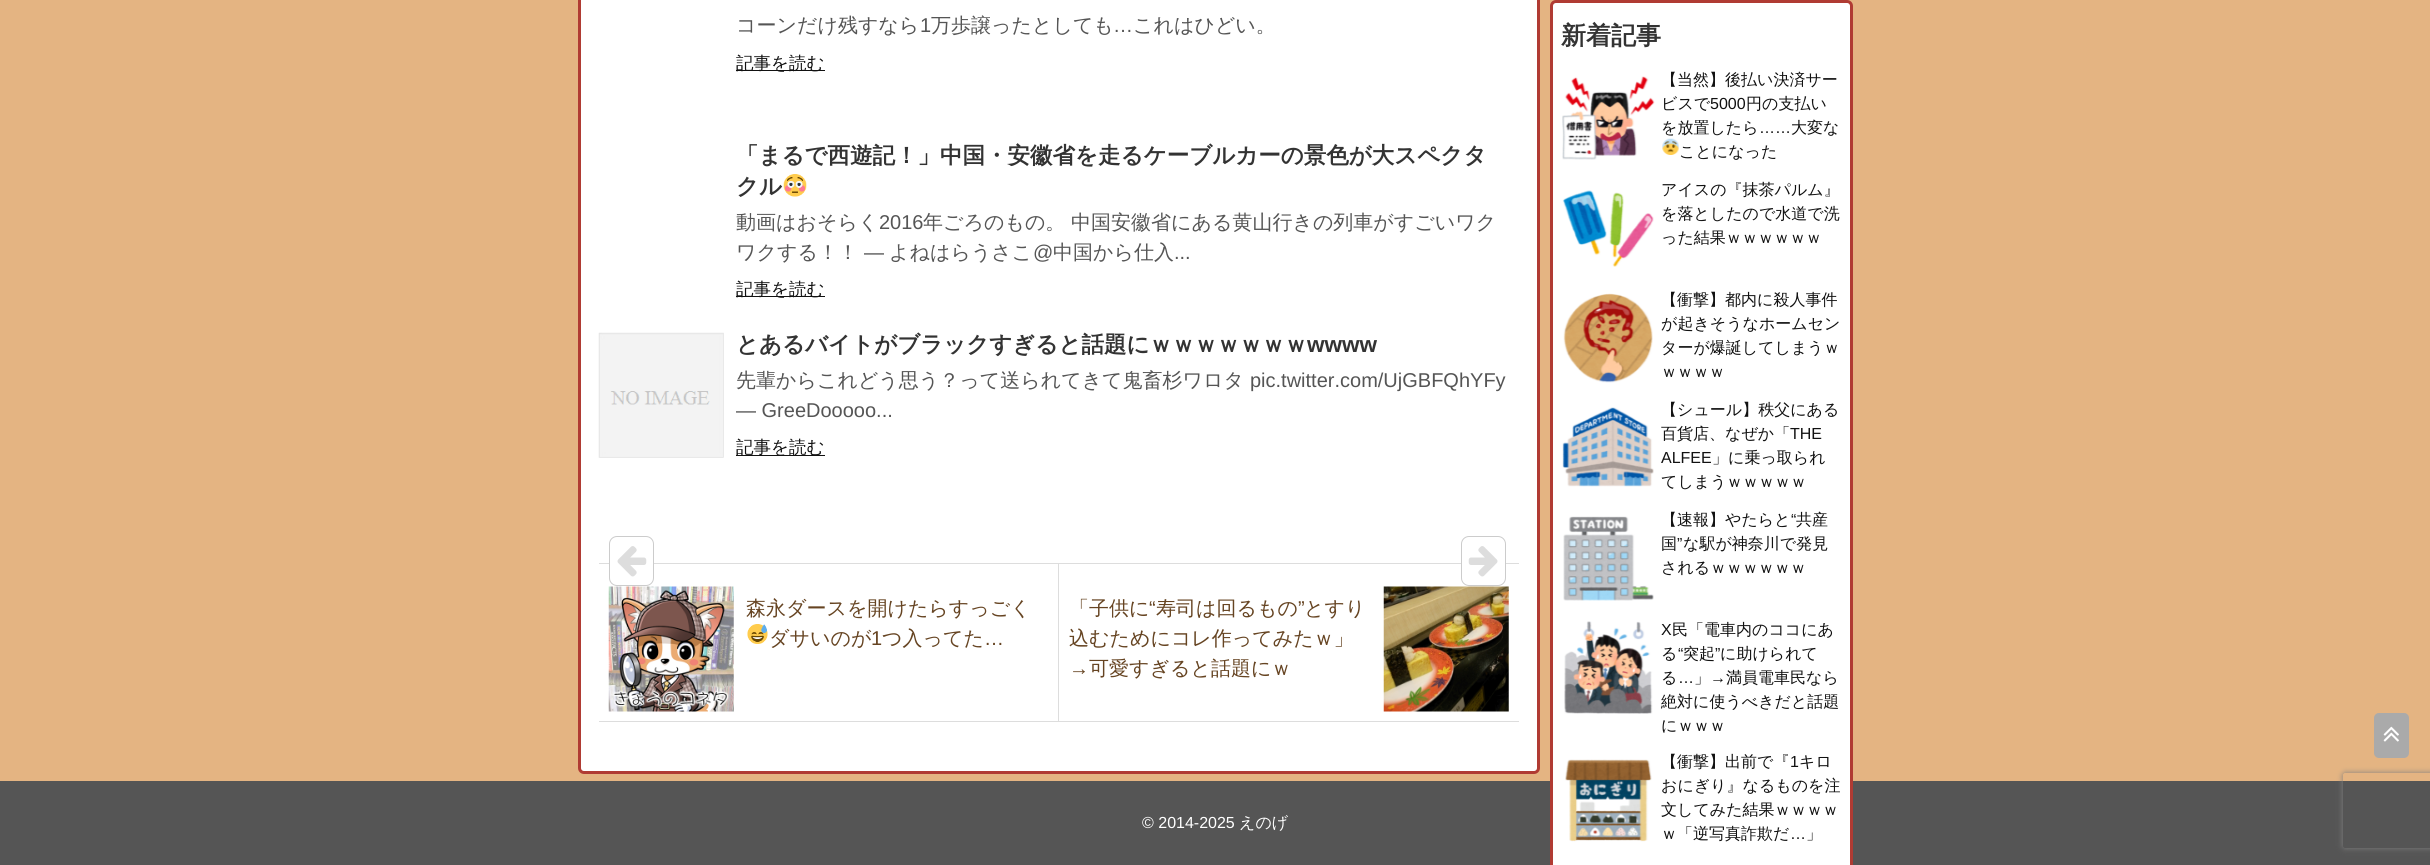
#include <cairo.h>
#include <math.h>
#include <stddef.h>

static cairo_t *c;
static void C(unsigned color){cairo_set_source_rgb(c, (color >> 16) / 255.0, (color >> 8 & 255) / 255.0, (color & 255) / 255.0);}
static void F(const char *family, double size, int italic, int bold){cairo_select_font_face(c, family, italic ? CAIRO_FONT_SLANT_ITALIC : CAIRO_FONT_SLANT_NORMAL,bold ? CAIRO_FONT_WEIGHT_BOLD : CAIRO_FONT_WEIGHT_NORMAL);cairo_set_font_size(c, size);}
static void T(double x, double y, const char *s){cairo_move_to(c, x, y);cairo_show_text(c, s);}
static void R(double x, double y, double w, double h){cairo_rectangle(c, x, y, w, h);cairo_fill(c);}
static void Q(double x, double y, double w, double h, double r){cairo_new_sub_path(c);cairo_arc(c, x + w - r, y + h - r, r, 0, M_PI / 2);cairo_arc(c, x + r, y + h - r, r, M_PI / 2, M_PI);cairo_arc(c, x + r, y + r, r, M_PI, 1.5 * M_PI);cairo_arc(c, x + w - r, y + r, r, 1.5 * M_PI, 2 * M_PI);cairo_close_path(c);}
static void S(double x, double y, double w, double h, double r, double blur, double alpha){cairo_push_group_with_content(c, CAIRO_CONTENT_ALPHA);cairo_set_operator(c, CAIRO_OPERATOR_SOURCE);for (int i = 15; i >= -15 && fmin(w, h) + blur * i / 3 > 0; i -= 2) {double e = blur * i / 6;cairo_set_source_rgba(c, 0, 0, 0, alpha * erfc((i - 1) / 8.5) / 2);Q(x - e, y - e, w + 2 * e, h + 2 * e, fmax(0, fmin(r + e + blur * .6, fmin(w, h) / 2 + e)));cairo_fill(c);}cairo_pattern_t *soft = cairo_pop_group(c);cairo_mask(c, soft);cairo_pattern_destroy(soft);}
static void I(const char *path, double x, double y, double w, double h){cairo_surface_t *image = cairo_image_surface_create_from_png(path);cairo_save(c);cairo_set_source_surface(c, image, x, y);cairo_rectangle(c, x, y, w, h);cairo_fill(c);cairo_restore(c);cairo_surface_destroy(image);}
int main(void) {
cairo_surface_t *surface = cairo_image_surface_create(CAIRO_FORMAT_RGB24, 2430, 865);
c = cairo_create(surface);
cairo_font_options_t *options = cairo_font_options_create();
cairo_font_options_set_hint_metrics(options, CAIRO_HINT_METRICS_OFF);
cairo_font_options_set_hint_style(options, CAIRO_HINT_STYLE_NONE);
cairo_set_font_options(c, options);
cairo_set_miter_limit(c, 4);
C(0xe4b482);
cairo_paint(c);
C(0xffffff);
Q(579.5,-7.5,959,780,4.5);
cairo_fill_preserve(c);
C(0xb03b33);
cairo_set_line_width(c,3);
cairo_stroke(c);
F("WenQuanYi Zen Hei Medium",20,0,0);
C(0x555555);
T(736,32,"コーンだけ残すなら");
F("Liberation Sans",20,0,0);
T(920,32,"1");
F("WenQuanYi Zen Hei Medium",20,0,0);
T(931,32,"万歩譲ったとしても");
F("Liberation Sans",20,0,0);
T(1113,32,"…");
F("WenQuanYi Zen Hei Medium",20,0,0);
T(1133,32,"これはひどい。");
C(0x111111);
R(736,70,89,1);
F("WenQuanYi Zen Hei Medium",17.5,0,0);
T(736,69,"記事を読む");
F("WenQuanYi Zen Hei",22.5,0,1);
C(0x333333);
T(736,163,"「まるで西遊記！」中国・安徽省を走るケーブルカーの景色が大スペクタ");
T(736,194,"クル");
I("1.png",783,174,24,23);
F("WenQuanYi Zen Hei Medium",20,0,0);
C(0x555555);
T(736,229,"動画はおそらく");
F("Liberation Sans",20,0,0);
T(879,229,"2016");
F("WenQuanYi Zen Hei Medium",20,0,0);
T(923,229,"年ごろのもの。");
T(1071,229,"中国安徽省にある黄山行きの列車がすごいワク");
T(736,259,"ワクする！！");
F("Liberation Sans",20,0,0);
T(864,259,"—");
F("WenQuanYi Zen Hei Medium",20,0,0);
T(889,259,"よねはらうさこ");
F("Liberation Sans",20,0,0);
T(1033,259,"@");
F("WenQuanYi Zen Hei Medium",20,0,0);
T(1053,259,"中国から仕入");
F("Liberation Sans",20,0,0);
T(1174,259,"...");
C(0x111111);
R(736,296,89,1);
F("WenQuanYi Zen Hei Medium",17.5,0,0);
T(736,295,"記事を読む");
I("2.png",598,332,126,126);
F("WenQuanYi Zen Hei",22.5,0,1);
C(0x333333);
T(736,352,"とあるバイトがブラックすぎると話題にｗｗｗｗｗｗｗ");
F("Liberation Sans",22.5,0,1);
T(1307,352,"wwww");
F("WenQuanYi Zen Hei Medium",20,0,0);
C(0x555555);
T(736,387,"先輩からこれどう思う？って送られてきて鬼畜杉ワロタ");
F("Liberation Sans",20,0,0);
T(1250,387,"pic.twitter.com/UjGBFQhYFy");
T(736,417,"— GreeDooooo...");
C(0x111111);
R(736,455,89,1);
F("WenQuanYi Zen Hei Medium",17.5,0,0);
T(736,453,"記事を読む");
C(0xdddddd);
R(599,563,920,1);
R(599,721,920,1);
R(1058,564,1,157);
C(0xffffff);
Q(609.5,536.5,44,49,7.5);
cairo_fill_preserve(c);
C(0xcccccc);
cairo_set_line_width(c,1);
cairo_stroke(c);
I("3.png",617,546,30,31);
I("4.png",608,586,126,126);
F("WenQuanYi Zen Hei Medium",20,0,0);
C(0x664422);
T(746,615,"森永ダースを開けたらすっごく");
I("5.png",747,624,21,20);
T(769,645,"ダサいのが");
F("Liberation Sans",20,0,0);
T(871,645,"1");
F("WenQuanYi Zen Hei Medium",20,0,0);
T(882,645,"つ入ってた");
F("Liberation Sans",20,0,0);
T(984,645,"…");
C(0xffffff);
Q(1461.5,536.5,44,49,7.5);
cairo_fill_preserve(c);
C(0xcccccc);
cairo_stroke(c);
I("6.png",1468,546,30,31);
F("WenQuanYi Zen Hei Medium",20,0,0);
C(0x664422);
T(1069,615,"「子供に");
F("Liberation Sans",20,0,0);
T(1149,615,"“");
F("WenQuanYi Zen Hei Medium",20,0,0);
T(1156,615,"寿司は回るもの");
F("Liberation Sans",20,0,0);
T(1298,615,"”");
F("WenQuanYi Zen Hei Medium",20,0,0);
T(1304,615,"とすり");
T(1069,645,"込むためにコレ作ってみたｗ」");
F("Liberation Sans",20,0,0);
T(1069,675,"→");
F("WenQuanYi Zen Hei Medium",20,0,0);
T(1089,675,"可愛すぎると話題にｗ");
I("7.png",1383,586,126,126);
C(0x555555);
R(0,781,2430,84);
C(0xffffff);
Q(1551.5,1.5,300,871,4.5);
cairo_fill_preserve(c);
C(0xb03b33);
cairo_set_line_width(c,3);
cairo_stroke(c);
F("WenQuanYi Zen Hei",25,0,1);
C(0x333333);
T(1561,44,"新着記事");
I("8.png",1562,76,93,84);
F("WenQuanYi Zen Hei Medium",16,0,0);
C(0x111111);
T(1661,85,"【当然】後払い決済サー");
T(1661,109,"ビスで");
F("Liberation Sans",16,0,0);
T(1710,109,"5000");
F("WenQuanYi Zen Hei Medium",16,0,0);
T(1746,109,"円の支払い");
T(1661,133,"を放置したら");
F("Liberation Sans",16,0,0);
T(1759,133,"……");
F("WenQuanYi Zen Hei Medium",16,0,0);
T(1791,133,"大変な");
I("9.png",1662,138,17,17);
T(1679,157,"ことになった");
I("10.png",1562,190,92,77);
T(1661,195,"アイスの『抹茶パルム』");
T(1661,219,"を落としたので水道で洗");
T(1661,243,"った結果ｗｗｗｗｗｗ");
I("11.png",1563,293,90,90);
T(1661,305,"【衝撃】都内に殺人事件");
T(1661,329,"が起きそうなホームセン");
T(1661,353,"ターが爆誕してしまうｗ");
T(1661,377,"ｗｗｗｗ");
I("12.png",1562,407,92,80);
T(1661,415,"【シュール】秩父にある");
T(1661,439,"百貨店、なぜか「");
F("Liberation Sans",16,0,0);
T(1790,439,"THE");
T(1661,463,"ALFEE");
F("WenQuanYi Zen Hei Medium",16,0,0);
T(1712,463,"」に乗っ取られ");
T(1661,487,"てしまうｗｗｗｗｗ");
I("13.png",1563,516,91,85);
T(1661,525,"【速報】やたらと");
F("Liberation Sans",16,0,0);
T(1791,525,"“");
F("WenQuanYi Zen Hei Medium",16,0,0);
T(1796,525,"共産");
T(1661,549,"国");
F("Liberation Sans",16,0,0);
T(1677,549,"”");
F("WenQuanYi Zen Hei Medium",16,0,0);
T(1683,549,"な駅が神奈川で発見");
T(1661,573,"されるｗｗｗｗｗｗ");
I("14.png",1564,621,89,93);
F("Liberation Sans",16,0,0);
T(1661,635,"X");
F("WenQuanYi Zen Hei Medium",16,0,0);
T(1672,635,"民「電車内のココにあ");
T(1661,659,"る");
F("Liberation Sans",16,0,0);
T(1678,659,"“");
F("WenQuanYi Zen Hei Medium",16,0,0);
T(1683,659,"突起");
F("Liberation Sans",16,0,0);
T(1715,659,"”");
F("WenQuanYi Zen Hei Medium",16,0,0);
T(1720,659,"に助けられて");
T(1661,683,"る");
F("Liberation Sans",16,0,0);
T(1678,683,"…");
F("WenQuanYi Zen Hei Medium",16,0,0);
T(1694,683,"」");
F("Liberation Sans",16,0,0);
T(1710,683,"→");
F("WenQuanYi Zen Hei Medium",16,0,0);
T(1726,683,"満員電車民なら");
T(1661,707,"絶対に使うべきだと話題");
T(1661,731,"にｗｗｗ");
I("15.png",1565,759,87,83);
T(1661,767,"【衝撃】出前で『");
F("Liberation Sans",16,0,0);
T(1790,767,"1");
F("WenQuanYi Zen Hei Medium",16,0,0);
T(1799,767,"キロ");
T(1661,791,"おにぎり』なるものを注");
T(1661,815,"文してみた結果ｗｗｗｗ");
T(1661,839,"ｗ「逆写真詐欺だ");
F("Liberation Sans",16,0,0);
T(1790,839,"…");
F("WenQuanYi Zen Hei Medium",16,0,0);
T(1806,839,"」");
C(0xaaaaaa);
Q(2374,713,35,45,5);
cairo_fill(c);
I("16.png",2383,726,16,16);
F("Liberation Sans",16,0,0);
C(0xffffff);
T(1142,828,"© 2014-2025");
F("WenQuanYi Zen Hei Medium",16,0,0);
T(1239,828,"えのげ");
cairo_save(c);
cairo_set_fill_rule(c,CAIRO_FILL_RULE_EVEN_ODD);
cairo_new_path(c);
cairo_move_to(c,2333,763);
cairo_line_to(c,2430,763);
cairo_line_to(c,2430,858);
cairo_line_to(c,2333,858);
cairo_close_path(c);
cairo_move_to(c,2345.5,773);
cairo_line_to(c,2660.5,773);
cairo_curve_to(c,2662,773,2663,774,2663,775.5);
cairo_line_to(c,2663,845.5);
cairo_curve_to(c,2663,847,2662,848,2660.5,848);
cairo_line_to(c,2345.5,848);
cairo_curve_to(c,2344,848,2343,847,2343,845.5);
cairo_line_to(c,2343,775.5);
cairo_curve_to(c,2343,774,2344,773,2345.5,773);
cairo_close_path(c);
cairo_clip(c);
C(0x808080);
S(2343,773,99,75,2.5,3,1);
cairo_restore(c);
cairo_surface_write_to_png(surface, "o.png");
cairo_font_options_destroy(options);
cairo_destroy(c);
cairo_surface_destroy(surface);
return 0;
}
